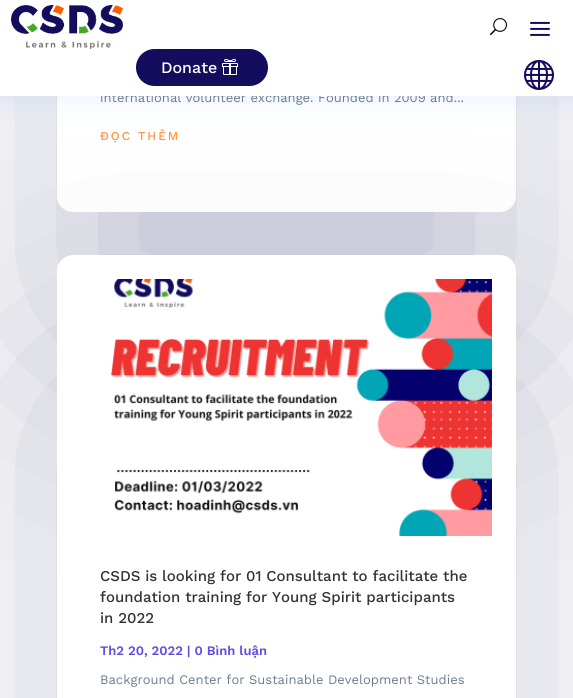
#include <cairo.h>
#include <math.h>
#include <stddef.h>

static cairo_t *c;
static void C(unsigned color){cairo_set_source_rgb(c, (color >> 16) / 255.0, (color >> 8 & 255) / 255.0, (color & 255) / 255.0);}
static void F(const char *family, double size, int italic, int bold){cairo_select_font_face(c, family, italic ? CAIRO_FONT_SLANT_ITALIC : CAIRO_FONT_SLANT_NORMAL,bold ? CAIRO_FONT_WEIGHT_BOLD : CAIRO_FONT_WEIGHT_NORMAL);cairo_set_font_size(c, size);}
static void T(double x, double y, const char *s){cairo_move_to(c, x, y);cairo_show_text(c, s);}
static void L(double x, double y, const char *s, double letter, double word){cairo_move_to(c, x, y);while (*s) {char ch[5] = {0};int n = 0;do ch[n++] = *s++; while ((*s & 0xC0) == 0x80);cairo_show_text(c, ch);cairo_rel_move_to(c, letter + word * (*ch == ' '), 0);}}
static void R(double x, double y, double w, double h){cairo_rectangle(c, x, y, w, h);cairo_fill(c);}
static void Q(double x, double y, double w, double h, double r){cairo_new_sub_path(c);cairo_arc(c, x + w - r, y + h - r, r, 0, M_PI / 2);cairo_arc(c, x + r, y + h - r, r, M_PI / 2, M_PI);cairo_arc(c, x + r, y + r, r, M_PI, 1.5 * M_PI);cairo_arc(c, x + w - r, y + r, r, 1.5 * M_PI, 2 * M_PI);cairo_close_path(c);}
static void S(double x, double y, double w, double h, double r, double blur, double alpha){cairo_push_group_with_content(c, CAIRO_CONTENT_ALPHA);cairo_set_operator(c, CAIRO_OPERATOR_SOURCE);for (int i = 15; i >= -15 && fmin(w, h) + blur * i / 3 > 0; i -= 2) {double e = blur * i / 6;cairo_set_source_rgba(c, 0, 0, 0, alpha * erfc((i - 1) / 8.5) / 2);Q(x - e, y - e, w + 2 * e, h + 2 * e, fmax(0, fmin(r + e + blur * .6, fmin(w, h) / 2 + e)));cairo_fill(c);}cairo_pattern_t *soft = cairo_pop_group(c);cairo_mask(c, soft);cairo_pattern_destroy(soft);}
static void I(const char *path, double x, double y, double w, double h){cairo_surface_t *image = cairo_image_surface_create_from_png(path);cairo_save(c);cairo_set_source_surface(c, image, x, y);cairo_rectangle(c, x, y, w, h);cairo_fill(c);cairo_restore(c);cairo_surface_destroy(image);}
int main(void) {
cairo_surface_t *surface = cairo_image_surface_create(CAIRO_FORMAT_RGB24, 573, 698);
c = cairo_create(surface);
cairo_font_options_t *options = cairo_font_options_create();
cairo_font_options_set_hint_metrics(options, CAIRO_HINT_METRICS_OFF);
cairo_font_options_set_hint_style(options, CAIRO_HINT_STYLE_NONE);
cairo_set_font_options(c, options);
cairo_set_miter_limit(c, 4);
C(0xffffff);
cairo_paint(c);
C(0x000645);
S(77,-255,419,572,0,125,.25);
C(0xffffff);
Q(69,-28,435,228,4);
cairo_fill_preserve(c);
cairo_set_line_width(c,24);
cairo_stroke(c);
C(0x6797ff);
S(0,0,573,96,0,15,.17);
F("Work Sans",13,0,0);
C(0x6d7c90);
T(100,102,"international volunteer exchange. Founded in 2009 and...");
C(0x000645);
S(77,400,419,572,0,125,.25);
C(0xffffff);
R(0,0,573,96);
I("1.png",11,5,112,44);
I("2.png",490,18,17,18);
I("3.png",530,21,20,15);
C(0x140c5c);
Q(136,49,132,37,18.5);
cairo_fill(c);
F("Work Sans Medium",16,0,0);
C(0xffffff);
T(161,73,"Donate");
I("4.png",222,59,16,16);
I("5.png",524,60,30,30);
F("Work Sans Medium",12,0,0);
C(0xff9243);
L(100,140,"ĐỌC THÊM",2,0);
C(0xffffff);
Q(69,267,435,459,4);
cairo_fill_preserve(c);
cairo_stroke(c);
I("6.png",111,279,381,257);
F("Work Sans Medium",15,0,0);
C(0x333333);
T(100,581,"CSDS is looking for 01 Consultant to facilitate the");
T(100,602,"foundation training for Young Spirit participants");
T(100,623,"in 2022");
F("Work Sans SemiBold",13,0,0);
C(0x624de3);
T(100,655,"Th2 20, 2022 | 0 Bình luận");
F("Work Sans",13,0,0);
C(0x6d7c90);
T(100,684,"Background Center for Sustainable Development Studies");
cairo_surface_write_to_png(surface, "o.png");
cairo_font_options_destroy(options);
cairo_destroy(c);
cairo_surface_destroy(surface);
return 0;
}
